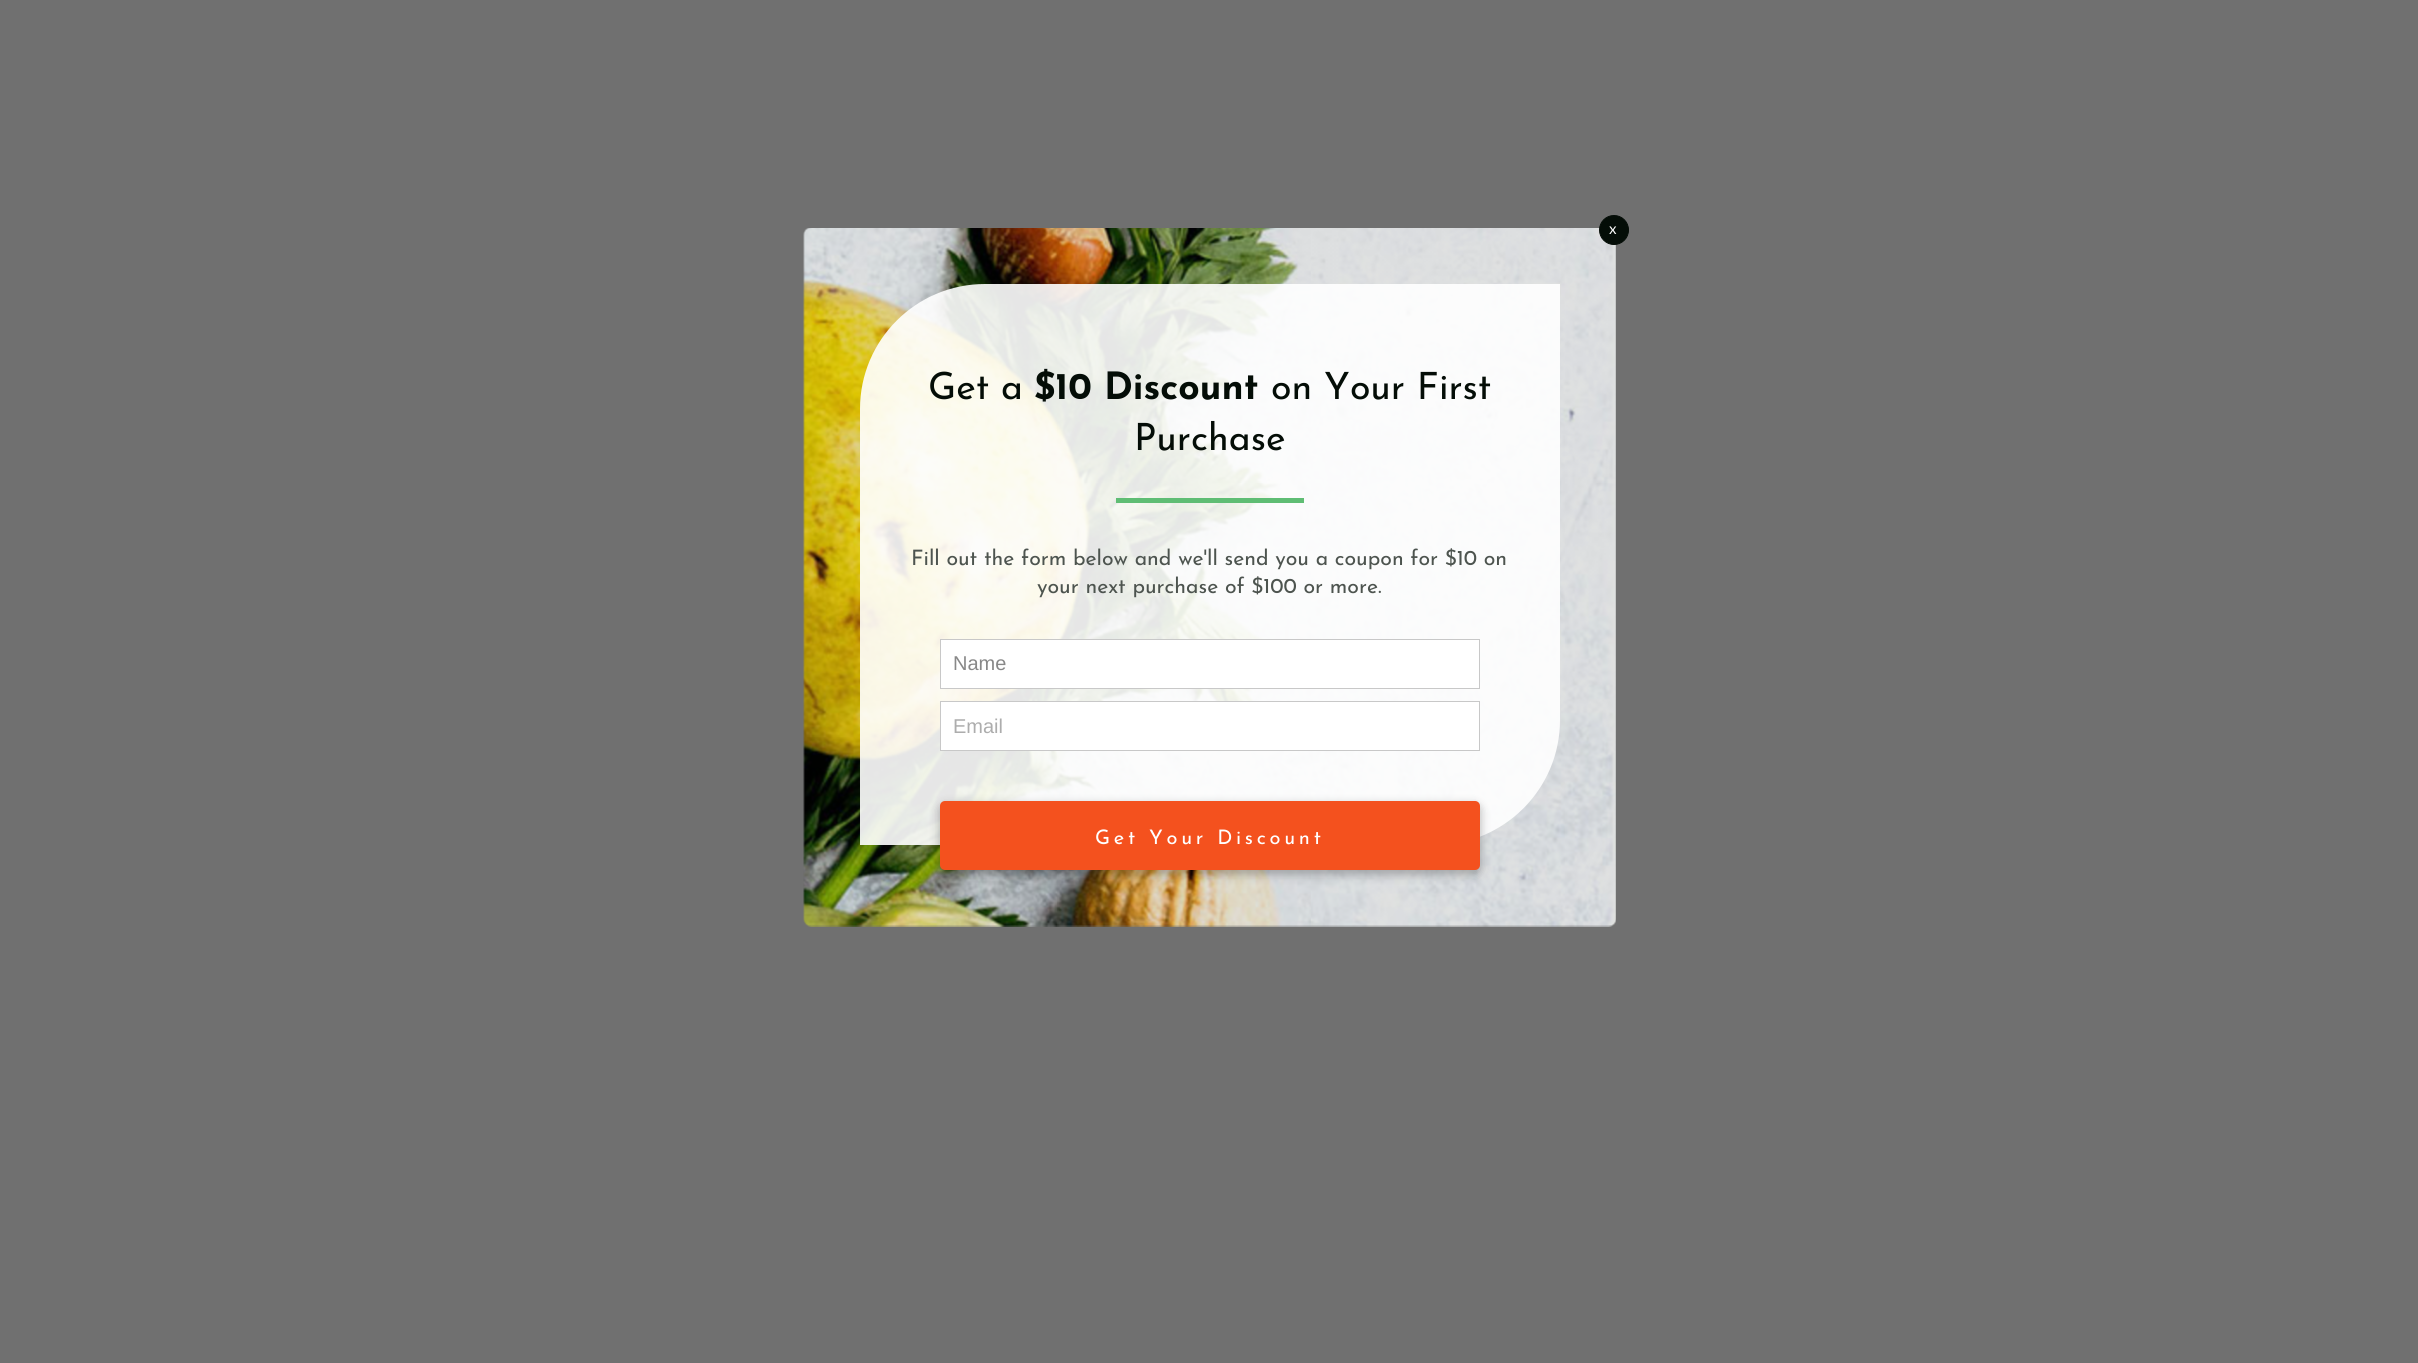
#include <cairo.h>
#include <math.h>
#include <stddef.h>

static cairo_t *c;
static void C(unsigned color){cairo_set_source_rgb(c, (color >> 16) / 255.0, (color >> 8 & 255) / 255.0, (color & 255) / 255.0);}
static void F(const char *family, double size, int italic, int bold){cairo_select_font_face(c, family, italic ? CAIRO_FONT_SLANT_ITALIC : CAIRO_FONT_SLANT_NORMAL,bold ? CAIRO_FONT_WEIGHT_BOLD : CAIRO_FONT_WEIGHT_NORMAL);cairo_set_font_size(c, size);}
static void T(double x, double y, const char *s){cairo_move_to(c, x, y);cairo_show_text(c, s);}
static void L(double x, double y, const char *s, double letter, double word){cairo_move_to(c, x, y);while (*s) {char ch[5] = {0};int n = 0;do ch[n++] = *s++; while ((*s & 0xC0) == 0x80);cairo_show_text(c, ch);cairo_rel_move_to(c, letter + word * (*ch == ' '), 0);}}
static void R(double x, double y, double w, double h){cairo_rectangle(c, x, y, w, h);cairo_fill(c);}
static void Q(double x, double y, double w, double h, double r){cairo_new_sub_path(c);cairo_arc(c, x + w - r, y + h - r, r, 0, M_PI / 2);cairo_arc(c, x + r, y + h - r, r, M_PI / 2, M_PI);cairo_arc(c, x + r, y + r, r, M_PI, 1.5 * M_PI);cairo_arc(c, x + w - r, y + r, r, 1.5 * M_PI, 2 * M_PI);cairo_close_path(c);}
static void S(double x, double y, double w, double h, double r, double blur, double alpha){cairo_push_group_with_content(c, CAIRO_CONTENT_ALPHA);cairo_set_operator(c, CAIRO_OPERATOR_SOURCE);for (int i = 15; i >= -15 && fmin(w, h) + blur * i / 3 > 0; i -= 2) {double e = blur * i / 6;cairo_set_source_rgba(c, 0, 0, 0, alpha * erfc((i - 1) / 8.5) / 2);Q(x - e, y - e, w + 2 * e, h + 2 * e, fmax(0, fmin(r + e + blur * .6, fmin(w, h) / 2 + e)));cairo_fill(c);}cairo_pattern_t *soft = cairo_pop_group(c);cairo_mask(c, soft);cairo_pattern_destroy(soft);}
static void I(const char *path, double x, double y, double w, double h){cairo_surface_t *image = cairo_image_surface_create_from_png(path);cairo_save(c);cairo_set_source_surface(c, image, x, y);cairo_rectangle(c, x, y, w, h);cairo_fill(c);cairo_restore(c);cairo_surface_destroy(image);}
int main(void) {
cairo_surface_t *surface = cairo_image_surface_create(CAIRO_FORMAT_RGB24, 2418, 1363);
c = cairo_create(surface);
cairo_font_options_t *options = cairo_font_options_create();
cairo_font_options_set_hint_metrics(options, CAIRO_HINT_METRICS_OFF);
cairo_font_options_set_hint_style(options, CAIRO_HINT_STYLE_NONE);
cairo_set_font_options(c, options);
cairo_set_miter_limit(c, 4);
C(0x707070);
cairo_paint(c);
I("1.png",803,228,813,699);
C(0x040d07);
cairo_arc(c,1614,230,14.5,0,2 * M_PI);
cairo_fill_preserve(c);
cairo_set_line_width(c,1);
cairo_stroke(c);
F("Lato",15,0,0);
C(0xffffff);
T(1609,234,"x");
cairo_set_source_rgba(c,1,1,1,0.9);
cairo_new_path(c);
cairo_move_to(c,985,284);
cairo_line_to(c,1560,284);
cairo_line_to(c,1560,720);
cairo_curve_to(c,1560,789,1504,845,1435,845);
cairo_line_to(c,860,845);
cairo_line_to(c,860,409);
cairo_curve_to(c,860,340,916,284,985,284);
cairo_close_path(c);
cairo_fill(c);
F("Josefin Sans",37.5,0,0);
C(0x040d07);
T(928,399,"Get a");
F("Josefin Sans",37.5,0,1);
T(1034,399,"$10 Discount");
F("Josefin Sans",37.5,0,0);
T(1271,399,"on Your First");
T(1134,450,"Purchase");
C(0x5fbd74);
R(1116,498,188,5);
F("Josefin Sans",21.25,0,0);
C(0x4d544f);
T(911,565,"Fill out the form below and we'll send you a coupon for $10 on");
T(1037,593,"your next purchase of $100 or more.");
C(0xffffff);
cairo_rectangle(c,940.5,639.5,539,49);
cairo_fill_preserve(c);
C(0xc8c8c8);
cairo_stroke(c);
F("Liberation Sans",20,0,0);
C(0x888888);
T(953,670,"Name");
C(0xffffff);
cairo_rectangle(c,940.5,701.5,539,49);
cairo_fill_preserve(c);
C(0xc8c8c8);
cairo_stroke(c);
C(0xadadad);
T(953,733,"Email");
C(0x000000);
S(939,804,542,71,6,4.5,.25);
C(0xf4511e);
Q(940,801,540,69,5);
cairo_fill(c);
F("Josefin Sans",20,0,0);
C(0xffffff);
L(1095,844,"Get Your Discount",3.75,0);
cairo_surface_write_to_png(surface, "o.png");
cairo_font_options_destroy(options);
cairo_destroy(c);
cairo_surface_destroy(surface);
return 0;
}
